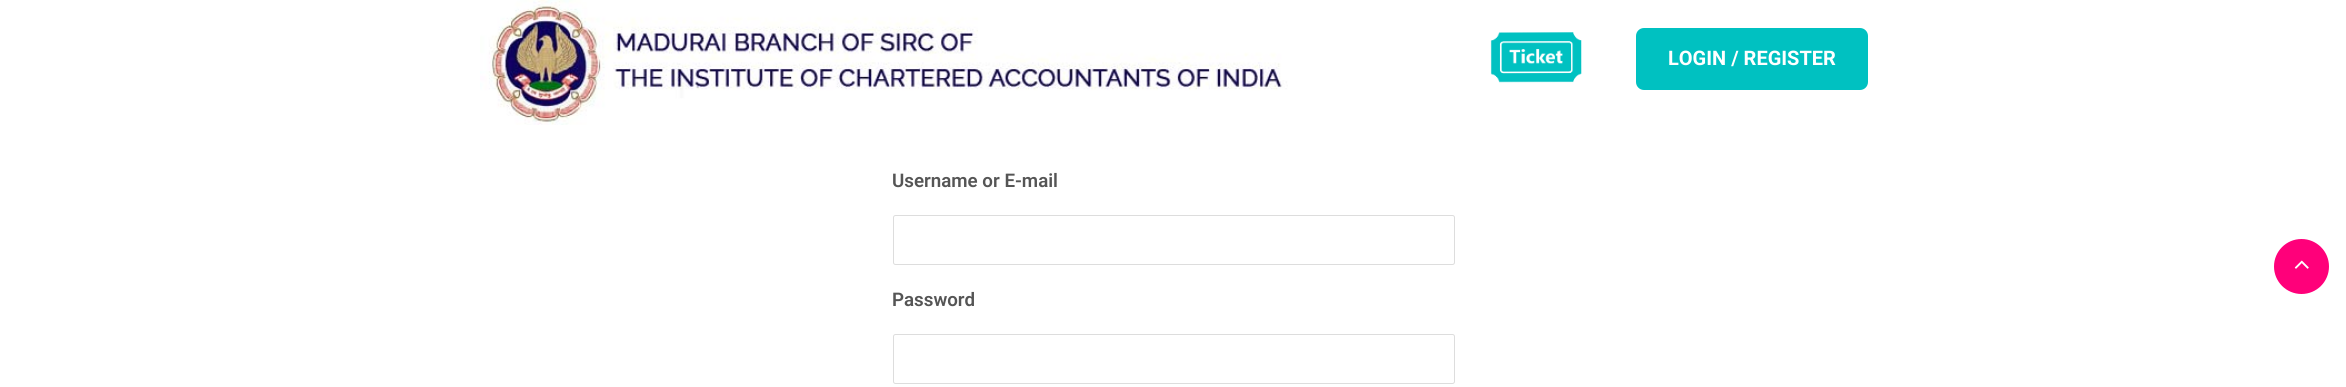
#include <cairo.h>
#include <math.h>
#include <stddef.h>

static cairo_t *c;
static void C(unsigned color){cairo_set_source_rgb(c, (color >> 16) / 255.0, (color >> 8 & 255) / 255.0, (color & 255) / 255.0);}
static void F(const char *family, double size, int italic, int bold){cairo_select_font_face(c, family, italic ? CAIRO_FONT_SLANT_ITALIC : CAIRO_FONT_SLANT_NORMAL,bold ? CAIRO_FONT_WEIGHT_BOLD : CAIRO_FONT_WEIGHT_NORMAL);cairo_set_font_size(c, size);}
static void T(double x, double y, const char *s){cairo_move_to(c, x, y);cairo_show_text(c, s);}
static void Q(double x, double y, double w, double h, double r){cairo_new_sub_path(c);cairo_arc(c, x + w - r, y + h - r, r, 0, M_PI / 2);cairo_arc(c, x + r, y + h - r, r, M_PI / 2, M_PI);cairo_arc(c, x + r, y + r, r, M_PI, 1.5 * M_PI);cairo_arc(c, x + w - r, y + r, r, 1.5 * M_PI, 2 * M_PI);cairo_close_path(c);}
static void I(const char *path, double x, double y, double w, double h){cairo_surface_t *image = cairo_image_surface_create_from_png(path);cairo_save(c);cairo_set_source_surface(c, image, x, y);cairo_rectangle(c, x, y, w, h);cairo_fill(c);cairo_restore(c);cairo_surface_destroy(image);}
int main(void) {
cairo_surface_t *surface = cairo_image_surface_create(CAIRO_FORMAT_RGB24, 2346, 387);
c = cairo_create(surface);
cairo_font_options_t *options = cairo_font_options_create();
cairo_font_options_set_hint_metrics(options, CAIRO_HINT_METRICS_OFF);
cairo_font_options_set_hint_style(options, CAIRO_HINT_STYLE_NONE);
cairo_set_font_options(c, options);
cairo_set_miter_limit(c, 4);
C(0xffffff);
cairo_paint(c);
I("1.png",480,0,808,125);
I("2.png",1490,32,92,51);
C(0x00c1c1);
Q(1636,28,232,62,8);
cairo_fill(c);
F("Roboto",20,0,1);
C(0xffffff);
T(1668,65,"LOGIN / REGISTER");
F("Roboto SemiBold",18.75,0,0);
C(0x555555);
T(892,187,"Username or E-mail");
Q(893.5,215.5,561,49,2);
C(0xdddddd);
cairo_set_line_width(c,1);
cairo_stroke(c);
C(0x555555);
T(892,306,"Password");
Q(893.5,334.5,561,49,2);
C(0xdddddd);
cairo_stroke(c);
C(0xff007a);
cairo_arc(c,2301.5,266.5,27.5,0,2 * M_PI);
cairo_fill(c);
I("3.png",2294,260,15,9);
cairo_surface_write_to_png(surface, "o.png");
cairo_font_options_destroy(options);
cairo_destroy(c);
cairo_surface_destroy(surface);
return 0;
}
